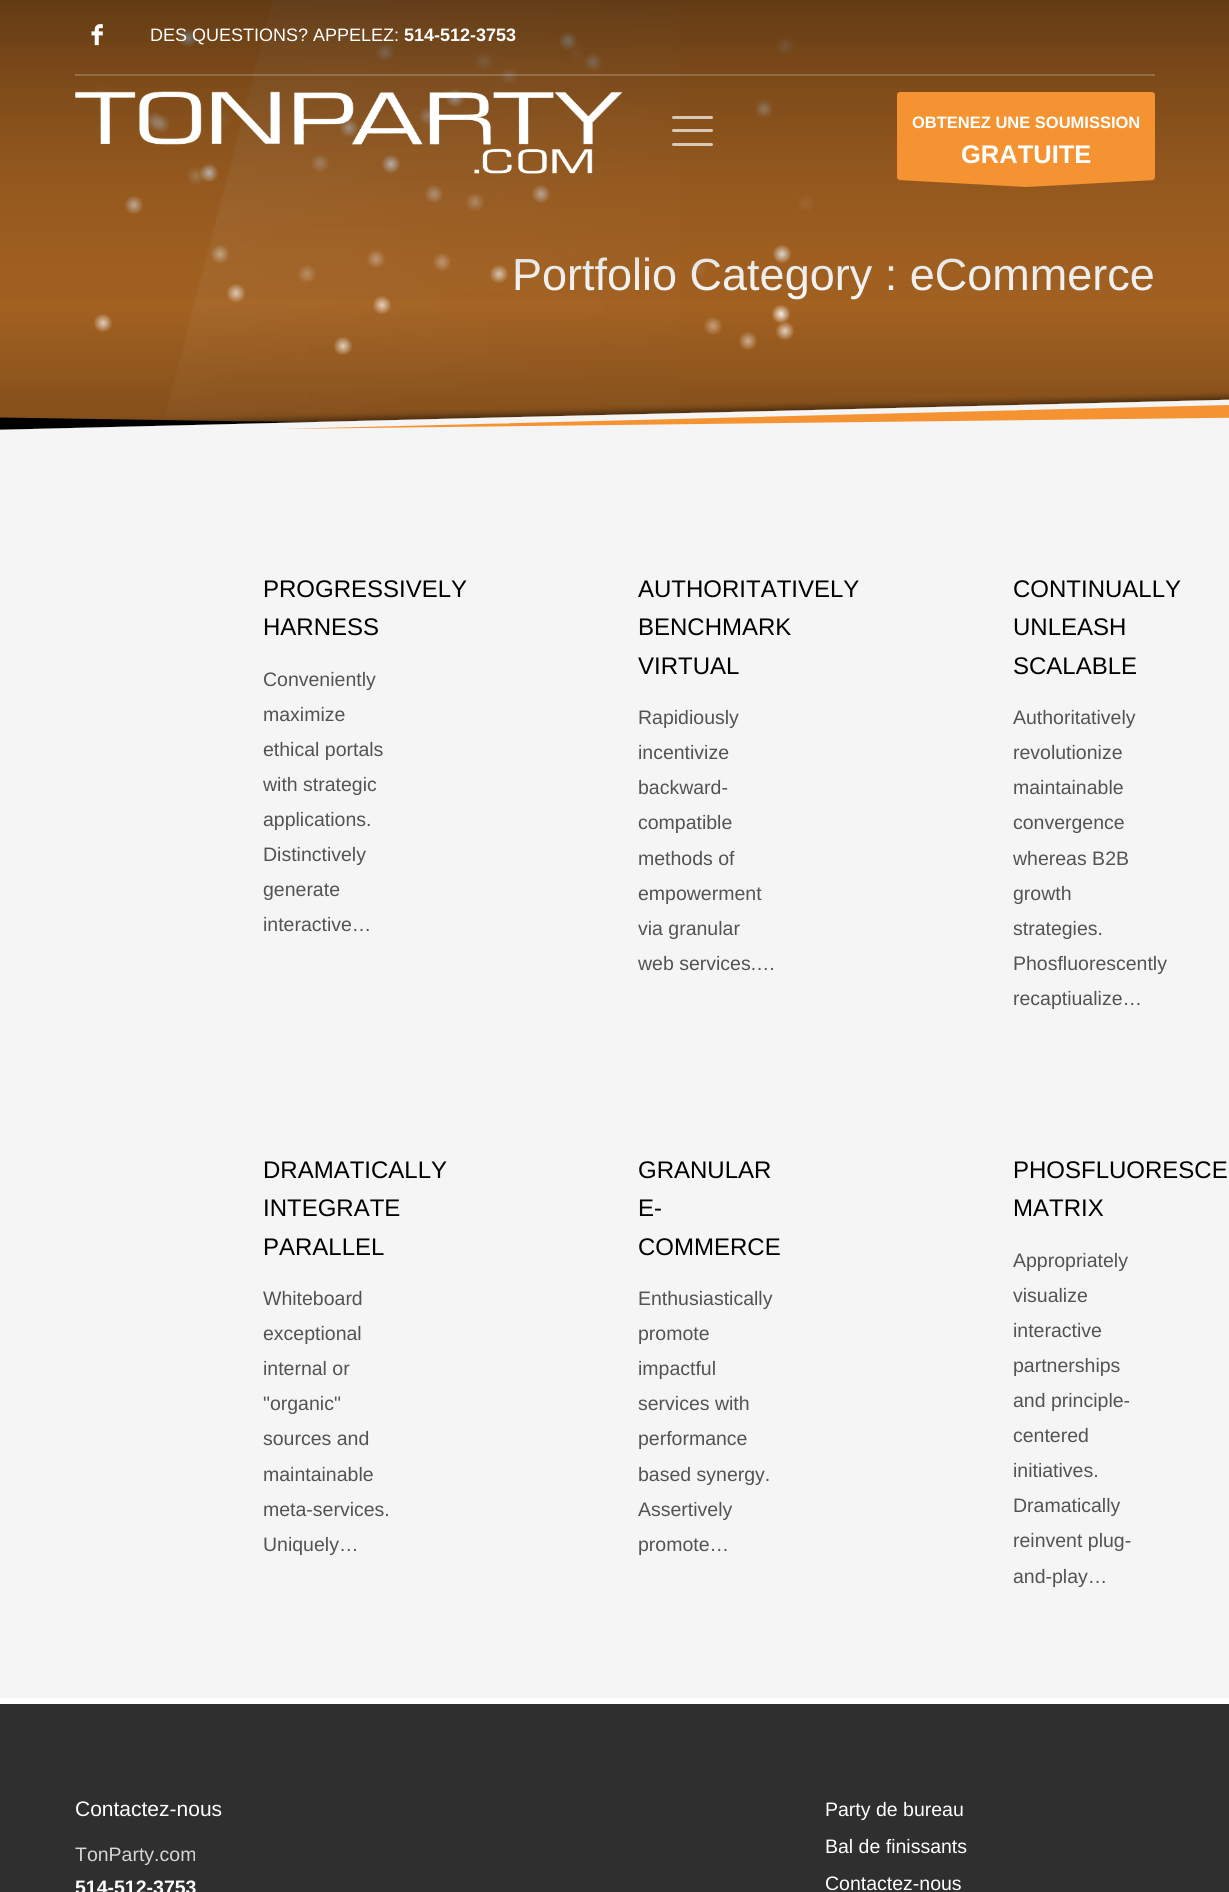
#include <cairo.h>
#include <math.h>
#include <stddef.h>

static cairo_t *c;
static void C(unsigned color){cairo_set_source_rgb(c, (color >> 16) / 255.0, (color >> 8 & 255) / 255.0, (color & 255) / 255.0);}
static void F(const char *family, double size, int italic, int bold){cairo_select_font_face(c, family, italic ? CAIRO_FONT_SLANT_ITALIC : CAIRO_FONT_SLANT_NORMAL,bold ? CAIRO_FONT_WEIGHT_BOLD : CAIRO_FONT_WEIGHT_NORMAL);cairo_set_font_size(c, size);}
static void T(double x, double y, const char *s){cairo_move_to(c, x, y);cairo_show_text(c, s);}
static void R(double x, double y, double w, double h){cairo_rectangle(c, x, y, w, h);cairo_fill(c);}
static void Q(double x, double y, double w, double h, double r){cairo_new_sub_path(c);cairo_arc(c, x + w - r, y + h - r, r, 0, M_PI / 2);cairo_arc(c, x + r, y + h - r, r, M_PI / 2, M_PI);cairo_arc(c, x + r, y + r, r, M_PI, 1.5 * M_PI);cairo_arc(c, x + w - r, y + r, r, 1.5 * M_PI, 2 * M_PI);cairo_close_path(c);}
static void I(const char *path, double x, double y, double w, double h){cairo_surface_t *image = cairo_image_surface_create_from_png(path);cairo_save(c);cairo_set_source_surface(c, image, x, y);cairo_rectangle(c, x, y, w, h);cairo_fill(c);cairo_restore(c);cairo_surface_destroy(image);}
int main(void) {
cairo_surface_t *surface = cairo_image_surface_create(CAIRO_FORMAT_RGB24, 1229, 1892);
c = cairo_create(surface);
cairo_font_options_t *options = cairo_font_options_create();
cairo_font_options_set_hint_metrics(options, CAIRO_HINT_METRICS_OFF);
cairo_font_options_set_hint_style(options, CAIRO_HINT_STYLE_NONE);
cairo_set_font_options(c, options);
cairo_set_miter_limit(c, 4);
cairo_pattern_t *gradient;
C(0xf5f5f5);
cairo_paint(c);
gradient = cairo_pattern_create_linear(615,0,615,450);
cairo_pattern_add_color_stop_rgba(gradient,0,0.965,0.576,0.196,1);
cairo_pattern_add_color_stop_rgba(gradient,1,0.482,0.29,0.098,1);
cairo_set_source(c,gradient);
cairo_pattern_destroy(gradient);
R(0,0,1229,423);
I("3.png",166,0,514,421);
gradient = cairo_pattern_create_radial(188,38,0,188,38,16);
cairo_pattern_add_color_stop_rgba(gradient,0,1,1,1,.9);
cairo_pattern_add_color_stop_rgba(gradient,.6,1,1,1,0);
cairo_set_source(c,gradient);
cairo_pattern_destroy(gradient);
R(179,29,18,18);
gradient = cairo_pattern_create_radial(385,52,0,385,52,16);
cairo_pattern_add_color_stop_rgba(gradient,0,1,1,1,.5);
cairo_pattern_add_color_stop_rgba(gradient,.6,1,1,1,0);
cairo_set_source(c,gradient);
cairo_pattern_destroy(gradient);
R(376,43,18,18);
gradient = cairo_pattern_create_radial(593,62,0,593,62,16);
cairo_pattern_add_color_stop_rgba(gradient,0,1,1,1,.5);
cairo_pattern_add_color_stop_rgba(gradient,.6,1,1,1,0);
cairo_set_source(c,gradient);
cairo_pattern_destroy(gradient);
R(584,53,18,18);
gradient = cairo_pattern_create_radial(577,53,0,577,53,16);
cairo_pattern_add_color_stop_rgba(gradient,0,1,1,1,.1);
cairo_pattern_add_color_stop_rgba(gradient,.6,1,1,1,0);
cairo_set_source(c,gradient);
cairo_pattern_destroy(gradient);
R(569,45,16,16);
gradient = cairo_pattern_create_radial(568,41,0,568,41,16);
cairo_pattern_add_color_stop_rgba(gradient,0,1,1,1,.7);
cairo_pattern_add_color_stop_rgba(gradient,.6,1,1,1,0);
cairo_set_source(c,gradient);
cairo_pattern_destroy(gradient);
R(559,32,18,18);
gradient = cairo_pattern_create_radial(785,46,0,785,46,16);
cairo_pattern_add_color_stop_rgba(gradient,0,1,1,1,.3);
cairo_pattern_add_color_stop_rgba(gradient,.6,1,1,1,0);
cairo_set_source(c,gradient);
cairo_pattern_destroy(gradient);
R(776,37,18,18);
gradient = cairo_pattern_create_radial(484,61,0,484,61,16);
cairo_pattern_add_color_stop_rgba(gradient,0,1,1,1,.3);
cairo_pattern_add_color_stop_rgba(gradient,.6,1,1,1,0);
cairo_set_source(c,gradient);
cairo_pattern_destroy(gradient);
R(475,52,18,18);
gradient = cairo_pattern_create_radial(509,76,0,509,76,16);
cairo_pattern_add_color_stop_rgba(gradient,0,1,1,1,.3);
cairo_pattern_add_color_stop_rgba(gradient,.6,1,1,1,0);
cairo_set_source(c,gradient);
cairo_pattern_destroy(gradient);
R(500,67,18,18);
gradient = cairo_pattern_create_radial(101,94,0,101,94,16);
cairo_pattern_add_color_stop_rgba(gradient,0,1,1,1,.1);
cairo_pattern_add_color_stop_rgba(gradient,.6,1,1,1,0);
cairo_set_source(c,gradient);
cairo_pattern_destroy(gradient);
R(94,86,14,16);
gradient = cairo_pattern_create_radial(455,98,0,455,98,16);
cairo_pattern_add_color_stop_rgba(gradient,0,1,1,1,.9);
cairo_pattern_add_color_stop_rgba(gradient,.6,1,1,1,0);
cairo_set_source(c,gradient);
cairo_pattern_destroy(gradient);
R(446,89,18,18);
gradient = cairo_pattern_create_radial(161,124,0,161,124,16);
cairo_pattern_add_color_stop_rgba(gradient,0,1,1,1,.5);
cairo_pattern_add_color_stop_rgba(gradient,.6,1,1,1,0);
cairo_set_source(c,gradient);
cairo_pattern_destroy(gradient);
R(152,115,18,18);
gradient = cairo_pattern_create_radial(155,121,0,155,121,16);
cairo_pattern_add_color_stop_rgba(gradient,0,1,1,1,.5);
cairo_pattern_add_color_stop_rgba(gradient,.6,1,1,1,0);
cairo_set_source(c,gradient);
cairo_pattern_destroy(gradient);
R(147,112,17,18);
gradient = cairo_pattern_create_radial(224,119,0,224,119,16);
cairo_pattern_add_color_stop_rgba(gradient,0,1,1,1,.1);
cairo_pattern_add_color_stop_rgba(gradient,.6,1,1,1,0);
cairo_set_source(c,gradient);
cairo_pattern_destroy(gradient);
R(220,111,12,16);
gradient = cairo_pattern_create_radial(428,116,0,428,116,16);
cairo_pattern_add_color_stop_rgba(gradient,0,1,1,1,.5);
cairo_pattern_add_color_stop_rgba(gradient,.6,1,1,1,0);
cairo_set_source(c,gradient);
cairo_pattern_destroy(gradient);
R(419,107,12,18);
gradient = cairo_pattern_create_radial(764,109,0,764,109,16);
cairo_pattern_add_color_stop_rgba(gradient,0,1,1,1,.5);
cairo_pattern_add_color_stop_rgba(gradient,.6,1,1,1,0);
cairo_set_source(c,gradient);
cairo_pattern_destroy(gradient);
R(755,100,18,18);
gradient = cairo_pattern_create_radial(349,128,0,349,128,16);
cairo_pattern_add_color_stop_rgba(gradient,0,1,1,1,.7);
cairo_pattern_add_color_stop_rgba(gradient,.6,1,1,1,0);
cairo_set_source(c,gradient);
cairo_pattern_destroy(gradient);
R(340,119,18,18);
gradient = cairo_pattern_create_radial(209,173,0,209,173,16);
cairo_pattern_add_color_stop_rgba(gradient,0,1,1,1,.9);
cairo_pattern_add_color_stop_rgba(gradient,.6,1,1,1,0);
cairo_set_source(c,gradient);
cairo_pattern_destroy(gradient);
R(200,164,18,18);
gradient = cairo_pattern_create_radial(196,176,0,196,176,16);
cairo_pattern_add_color_stop_rgba(gradient,0,1,1,1,.3);
cairo_pattern_add_color_stop_rgba(gradient,.6,1,1,1,0);
cairo_set_source(c,gradient);
cairo_pattern_destroy(gradient);
R(187,167,18,18);
gradient = cairo_pattern_create_radial(320,163,0,320,163,16);
cairo_pattern_add_color_stop_rgba(gradient,0,1,1,1,.4);
cairo_pattern_add_color_stop_rgba(gradient,.6,1,1,1,0);
cairo_set_source(c,gradient);
cairo_pattern_destroy(gradient);
R(311,154,18,18);
gradient = cairo_pattern_create_radial(391,164,0,391,164,16);
cairo_pattern_add_color_stop_rgba(gradient,0,1,1,1,.9);
cairo_pattern_add_color_stop_rgba(gradient,.6,1,1,1,0);
cairo_set_source(c,gradient);
cairo_pattern_destroy(gradient);
R(382,155,18,18);
gradient = cairo_pattern_create_radial(134,205,0,134,205,16);
cairo_pattern_add_color_stop_rgba(gradient,0,1,1,1,.7);
cairo_pattern_add_color_stop_rgba(gradient,.6,1,1,1,0);
cairo_set_source(c,gradient);
cairo_pattern_destroy(gradient);
R(125,196,18,18);
gradient = cairo_pattern_create_radial(434,194,0,434,194,16);
cairo_pattern_add_color_stop_rgba(gradient,0,1,1,1,.5);
cairo_pattern_add_color_stop_rgba(gradient,.6,1,1,1,0);
cairo_set_source(c,gradient);
cairo_pattern_destroy(gradient);
R(425,185,18,18);
gradient = cairo_pattern_create_radial(475,202,0,475,202,16);
cairo_pattern_add_color_stop_rgba(gradient,0,1,1,1,.4);
cairo_pattern_add_color_stop_rgba(gradient,.6,1,1,1,0);
cairo_set_source(c,gradient);
cairo_pattern_destroy(gradient);
R(466,193,18,18);
gradient = cairo_pattern_create_radial(541,194,0,541,194,16);
cairo_pattern_add_color_stop_rgba(gradient,0,1,1,1,.7);
cairo_pattern_add_color_stop_rgba(gradient,.6,1,1,1,0);
cairo_set_source(c,gradient);
cairo_pattern_destroy(gradient);
R(532,185,18,18);
gradient = cairo_pattern_create_radial(806,203,0,806,203,16);
cairo_pattern_add_color_stop_rgba(gradient,0,1,1,1,.1);
cairo_pattern_add_color_stop_rgba(gradient,.6,1,1,1,0);
cairo_set_source(c,gradient);
cairo_pattern_destroy(gradient);
R(798,195,16,16);
gradient = cairo_pattern_create_radial(220,254,0,220,254,16);
cairo_pattern_add_color_stop_rgba(gradient,0,1,1,1,.5);
cairo_pattern_add_color_stop_rgba(gradient,.6,1,1,1,0);
cairo_set_source(c,gradient);
cairo_pattern_destroy(gradient);
R(211,245,18,18);
gradient = cairo_pattern_create_radial(307,274,0,307,274,16);
cairo_pattern_add_color_stop_rgba(gradient,0,1,1,1,.3);
cairo_pattern_add_color_stop_rgba(gradient,.6,1,1,1,0);
cairo_set_source(c,gradient);
cairo_pattern_destroy(gradient);
R(298,265,18,18);
gradient = cairo_pattern_create_radial(376,259,0,376,259,16);
cairo_pattern_add_color_stop_rgba(gradient,0,1,1,1,.4);
cairo_pattern_add_color_stop_rgba(gradient,.6,1,1,1,0);
cairo_set_source(c,gradient);
cairo_pattern_destroy(gradient);
R(367,250,18,18);
gradient = cairo_pattern_create_radial(442,262,0,442,262,16);
cairo_pattern_add_color_stop_rgba(gradient,0,1,1,1,.4);
cairo_pattern_add_color_stop_rgba(gradient,.6,1,1,1,0);
cairo_set_source(c,gradient);
cairo_pattern_destroy(gradient);
R(433,253,18,18);
gradient = cairo_pattern_create_radial(499,274,0,499,274,16);
cairo_pattern_add_color_stop_rgba(gradient,0,1,1,1,.7);
cairo_pattern_add_color_stop_rgba(gradient,.6,1,1,1,0);
cairo_set_source(c,gradient);
cairo_pattern_destroy(gradient);
R(490,265,18,18);
gradient = cairo_pattern_create_radial(698,269,0,698,269,16);
cairo_pattern_add_color_stop_rgba(gradient,0,1,1,1,.1);
cairo_pattern_add_color_stop_rgba(gradient,.6,1,1,1,0);
cairo_set_source(c,gradient);
cairo_pattern_destroy(gradient);
R(690,261,16,16);
F("Liberation Sans",45,0,0);
C(0xffffff);
T(512,290,"Portfolio Category : eCommerce");
gradient = cairo_pattern_create_radial(782,254,0,782,254,16);
cairo_pattern_add_color_stop_rgba(gradient,0,1,1,1,.9);
cairo_pattern_add_color_stop_rgba(gradient,.6,1,1,1,0);
cairo_set_source(c,gradient);
cairo_pattern_destroy(gradient);
R(773,245,18,18);
gradient = cairo_pattern_create_radial(236,293,0,236,293,16);
cairo_pattern_add_color_stop_rgba(gradient,0,1,1,1,.7);
cairo_pattern_add_color_stop_rgba(gradient,.6,1,1,1,0);
cairo_set_source(c,gradient);
cairo_pattern_destroy(gradient);
R(227,284,18,18);
gradient = cairo_pattern_create_radial(382,305,0,382,305,16);
cairo_pattern_add_color_stop_rgba(gradient,0,1,1,1,.7);
cairo_pattern_add_color_stop_rgba(gradient,.6,1,1,1,0);
cairo_set_source(c,gradient);
cairo_pattern_destroy(gradient);
R(373,296,18,18);
gradient = cairo_pattern_create_linear(615,0,615,311);
cairo_pattern_add_color_stop_rgba(gradient,0,0,0,0,.6);
cairo_pattern_add_color_stop_rgba(gradient,1,0,0,0,0);
cairo_set_source(c,gradient);
cairo_pattern_destroy(gradient);
R(0,0,1229,300);
I("1.png",91,24,12,22);
F("Liberation Sans",18,0,0);
C(0xffffff);
T(150,41,"DES QUESTIONS? APPELEZ:");
F("Liberation Sans",18,0,1);
T(404,41,"514-512-3753");
cairo_set_source_rgba(c,1,1,1,0.2);
R(75,74,1080,2);
I("2.png",75,91,548,83);
cairo_set_source_rgba(c,1,1,1,0.68);
Q(672,116,41,3,1.5);
cairo_fill(c);
C(0xdac8b7);
Q(672,129,41,3,1.5);
cairo_fill(c);
C(0xdac9b7);
Q(672,143,41,3,1.5);
cairo_fill(c);
C(0xf59332);
Q(897,92,258,88,3);
cairo_fill(c);
F("Liberation Sans",16.5,0,1);
C(0xffffff);
T(912,128,"OBTENEZ UNE SOUMISSION");
F("Liberation Sans",25.5,0,1);
T(961,163,"GRATUITE");
C(0xf59332);
cairo_set_fill_rule(c,CAIRO_FILL_RULE_EVEN_ODD);
cairo_new_path(c);
cairo_move_to(c,1155,180);
cairo_line_to(c,1026,187);
cairo_line_to(c,897,180);
cairo_close_path(c);
cairo_fill(c);
gradient = cairo_pattern_create_radial(103,323,0,103,323,16);
cairo_pattern_add_color_stop_rgba(gradient,0,1,1,1,.7);
cairo_pattern_add_color_stop_rgba(gradient,.6,1,1,1,0);
cairo_set_source(c,gradient);
cairo_pattern_destroy(gradient);
R(94,314,18,18);
gradient = cairo_pattern_create_radial(713,326,0,713,326,16);
cairo_pattern_add_color_stop_rgba(gradient,0,1,1,1,.4);
cairo_pattern_add_color_stop_rgba(gradient,.6,1,1,1,0);
cairo_set_source(c,gradient);
cairo_pattern_destroy(gradient);
R(704,317,18,18);
gradient = cairo_pattern_create_radial(785,331,0,785,331,16);
cairo_pattern_add_color_stop_rgba(gradient,0,1,1,1,.7);
cairo_pattern_add_color_stop_rgba(gradient,.6,1,1,1,0);
cairo_set_source(c,gradient);
cairo_pattern_destroy(gradient);
R(776,322,18,18);
gradient = cairo_pattern_create_radial(781,314,0,781,314,16);
cairo_pattern_add_color_stop_rgba(gradient,0,1,1,1,.9);
cairo_pattern_add_color_stop_rgba(gradient,.6,1,1,1,0);
cairo_set_source(c,gradient);
cairo_pattern_destroy(gradient);
R(772,305,18,18);
gradient = cairo_pattern_create_radial(343,346,0,343,346,16);
cairo_pattern_add_color_stop_rgba(gradient,0,1,1,1,.7);
cairo_pattern_add_color_stop_rgba(gradient,.6,1,1,1,0);
cairo_set_source(c,gradient);
cairo_pattern_destroy(gradient);
R(334,337,18,18);
gradient = cairo_pattern_create_radial(748,341,0,748,341,16);
cairo_pattern_add_color_stop_rgba(gradient,0,1,1,1,.5);
cairo_pattern_add_color_stop_rgba(gradient,.6,1,1,1,0);
cairo_set_source(c,gradient);
cairo_pattern_destroy(gradient);
R(739,332,18,18);
I("4.png",0,392,1229,58);
F("Liberation Sans",24,0,0);
C(0x000000);
T(263,597,"PROGRESSIVELY");
T(263,635,"HARNESS");
F("Liberation Sans",19.5,0,0);
C(0x535353);
T(263,686,"Conveniently");
T(263,721,"maximize");
T(263,756,"ethical portals");
T(263,791,"with strategic");
T(263,826,"applications.");
T(263,861,"Distinctively");
T(263,896,"generate");
T(263,931,"interactive…");
F("Liberation Sans",24,0,0);
C(0x000000);
T(638,597,"AUTHORITATIVELY");
T(638,635,"BENCHMARK");
T(638,674,"VIRTUAL");
F("Liberation Sans",19.5,0,0);
C(0x535353);
T(638,724,"Rapidiously");
T(638,759,"incentivize");
T(638,794,"backward-");
T(638,829,"compatible");
T(638,865,"methods of");
T(638,900,"empowerment");
T(638,935,"via granular");
T(638,970,"web services.…");
F("Liberation Sans",24,0,0);
C(0x000000);
T(1013,597,"CONTINUALLY");
T(1013,635,"UNLEASH");
T(1013,674,"SCALABLE");
F("Liberation Sans",19.5,0,0);
C(0x535353);
T(1013,724,"Authoritatively");
T(1013,759,"revolutionize");
T(1013,794,"maintainable");
T(1013,829,"convergence");
T(1013,865,"whereas B2B");
T(1013,900,"growth");
T(1013,935,"strategies.");
T(1013,970,"Phosfluorescently");
T(1013,1005,"recaptiualize…");
F("Liberation Sans",24,0,0);
C(0x000000);
T(263,1178,"DRAMATICALLY");
T(263,1216,"INTEGRATE");
T(263,1255,"PARALLEL");
F("Liberation Sans",19.5,0,0);
C(0x535353);
T(263,1305,"Whiteboard");
T(263,1340,"exceptional");
T(263,1375,"internal or");
T(263,1410,"\"organic\"");
T(263,1445,"sources and");
T(263,1481,"maintainable");
T(263,1516,"meta-services.");
T(263,1551,"Uniquely…");
F("Liberation Sans",24,0,0);
C(0x000000);
T(638,1178,"GRANULAR");
T(638,1216,"E-");
T(638,1255,"COMMERCE");
F("Liberation Sans",19.5,0,0);
C(0x535353);
T(638,1305,"Enthusiastically");
T(638,1340,"promote");
T(638,1375,"impactful");
T(638,1410,"services with");
T(638,1445,"performance");
T(638,1481,"based synergy.");
T(638,1516,"Assertively");
T(638,1551,"promote…");
F("Liberation Sans",24,0,0);
C(0x000000);
T(1013,1178,"PHOSFLUORESCE");
T(1013,1216,"MATRIX");
F("Liberation Sans",19.5,0,0);
C(0x535353);
T(1013,1267,"Appropriately");
T(1013,1302,"visualize");
T(1013,1337,"interactive");
T(1013,1372,"partnerships");
T(1013,1407,"and principle-");
T(1013,1442,"centered");
T(1013,1477,"initiatives.");
T(1013,1512,"Dramatically");
T(1013,1547,"reinvent plug-");
T(1013,1583,"and-play…");
C(0x2f2f2f);
R(0,1704,1229,188);
C(0xffffff);
R(0,1698,1229,6);
F("Liberation Sans",21,0,0);
T(75,1816,"Contactez-nous");
F("Liberation Sans",19.5,0,0);
C(0xd5d5d5);
T(75,1861,"TonParty.com");
F("Liberation Sans",19.5,0,1);
C(0xffffff);
T(75,1894,"514-512-3753");
F("Liberation Sans",19.5,0,0);
T(825,1816,"Party de bureau");
T(825,1853,"Bal de finissants");
T(825,1890,"Contactez-nous");
cairo_surface_write_to_png(surface, "o.png");
cairo_font_options_destroy(options);
cairo_destroy(c);
cairo_surface_destroy(surface);
return 0;
}
